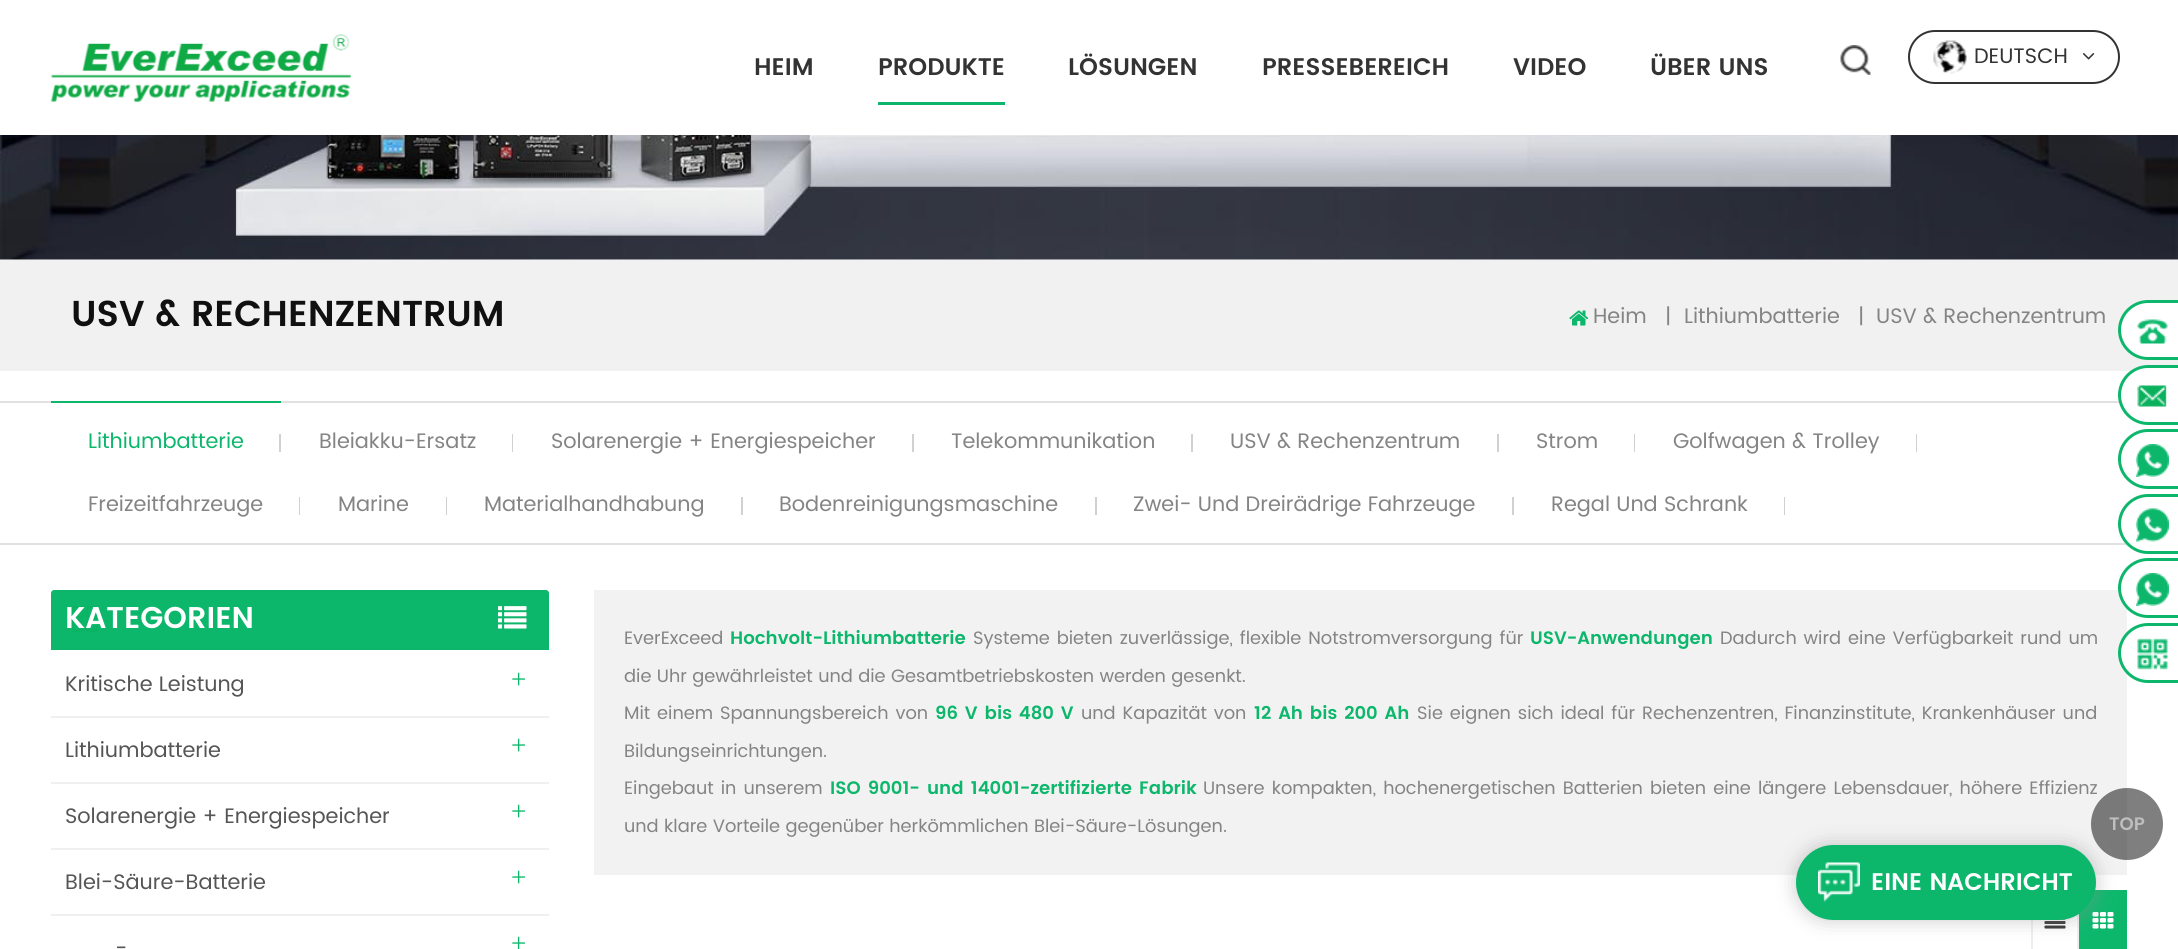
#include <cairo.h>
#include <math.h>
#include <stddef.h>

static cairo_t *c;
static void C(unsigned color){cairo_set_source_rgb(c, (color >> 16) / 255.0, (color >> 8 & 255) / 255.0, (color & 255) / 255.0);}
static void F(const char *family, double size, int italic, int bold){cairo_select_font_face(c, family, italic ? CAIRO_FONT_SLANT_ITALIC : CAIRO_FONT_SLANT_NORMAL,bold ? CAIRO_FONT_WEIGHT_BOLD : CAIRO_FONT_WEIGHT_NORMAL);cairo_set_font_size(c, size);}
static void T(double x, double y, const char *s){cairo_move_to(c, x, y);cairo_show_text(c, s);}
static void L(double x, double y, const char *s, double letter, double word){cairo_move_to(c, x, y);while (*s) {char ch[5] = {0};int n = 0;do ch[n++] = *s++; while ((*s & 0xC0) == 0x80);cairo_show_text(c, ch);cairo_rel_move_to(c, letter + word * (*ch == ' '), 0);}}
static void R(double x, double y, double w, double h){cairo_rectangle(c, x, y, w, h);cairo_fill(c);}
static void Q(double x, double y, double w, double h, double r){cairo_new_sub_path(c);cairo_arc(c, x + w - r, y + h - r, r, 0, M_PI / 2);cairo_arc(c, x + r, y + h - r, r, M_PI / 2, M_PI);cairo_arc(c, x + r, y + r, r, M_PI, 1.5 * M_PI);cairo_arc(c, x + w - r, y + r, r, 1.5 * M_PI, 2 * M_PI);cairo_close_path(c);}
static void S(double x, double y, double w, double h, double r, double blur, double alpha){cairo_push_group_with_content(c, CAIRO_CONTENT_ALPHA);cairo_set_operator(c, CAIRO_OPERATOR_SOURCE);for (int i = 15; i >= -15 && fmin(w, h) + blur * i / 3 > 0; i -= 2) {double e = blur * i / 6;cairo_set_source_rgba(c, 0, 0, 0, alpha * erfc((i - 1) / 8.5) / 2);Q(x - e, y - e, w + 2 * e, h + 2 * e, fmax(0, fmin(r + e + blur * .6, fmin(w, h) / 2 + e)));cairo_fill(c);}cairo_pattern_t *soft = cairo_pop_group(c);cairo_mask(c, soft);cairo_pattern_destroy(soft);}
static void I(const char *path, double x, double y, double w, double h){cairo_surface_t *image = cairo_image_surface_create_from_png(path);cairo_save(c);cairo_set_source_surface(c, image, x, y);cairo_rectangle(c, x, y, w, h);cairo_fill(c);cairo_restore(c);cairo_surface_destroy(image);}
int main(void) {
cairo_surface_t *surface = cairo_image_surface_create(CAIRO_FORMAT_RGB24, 2178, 949);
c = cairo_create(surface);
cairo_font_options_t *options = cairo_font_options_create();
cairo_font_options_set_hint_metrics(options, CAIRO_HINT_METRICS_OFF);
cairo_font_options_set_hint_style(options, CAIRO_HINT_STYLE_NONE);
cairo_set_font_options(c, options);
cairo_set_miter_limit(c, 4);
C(0xffffff);
cairo_paint(c);
I("5.png",0,135,2178,125);
C(0x000000);
S(-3,-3,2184,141,0,15,.05);
C(0xffffff);
R(0,0,2178,135);
I("1.png",50,34,301,68);
F("Poppins SemiBold",24,0,0);
C(0x333333);
T(754,75,"HEIM");
T(878,75,"PRODUKTE");
C(0x0cb76c);
R(878,102,127,3);
C(0x333333);
T(1068,75,"LÖSUNGEN");
T(1262,75,"PRESSEBEREICH");
T(1513,75,"VIDEO");
T(1650,75,"ÜBER UNS");
I("2.png",1840,45,31,30);
Q(1909,31,210,52,26);
cairo_stroke(c);
I("3.png",1933,40,34,34);
F("Poppins",21,0,0);
T(1974,63,"DEUTSCH");
I("4.png",2082,53,13,7);
C(0xf1f1f1);
R(0,260,2178,111);
F("Poppins SemiBold",36,0,0);
C(0x101010);
T(71,326,"USV & RECHENZENTRUM");
I("6.png",1569,310,20,16);
F("Poppins",21,0,0);
C(0x848484);
T(1593,323,"Heim");
T(1665,323,"|");
T(1684,323,"Lithiumbatterie");
T(1858,323,"|");
T(1876,323,"USV & Rechenzentrum");
C(0xffffff);
cairo_new_path(c);
cairo_move_to(c,2148,300);
cairo_line_to(c,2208,300);
cairo_line_to(c,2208,360);
cairo_line_to(c,2148,360);
cairo_curve_to(c,2131.5,360,2118,346.5,2118,330);
cairo_curve_to(c,2118,313.5,2131.5,300,2148,300);
cairo_close_path(c);
cairo_fill(c);
I("7.png",2137,319,31,25);
cairo_new_path(c);
cairo_move_to(c,2148,301.5);
cairo_line_to(c,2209.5,301.5);
cairo_line_to(c,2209.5,358.5);
cairo_line_to(c,2148,358.5);
cairo_curve_to(c,2132.5,358.5,2119.5,345.5,2119.5,330);
cairo_curve_to(c,2119.5,314.5,2132.5,301.5,2148,301.5);
cairo_close_path(c);
C(0x0cb76c);
cairo_set_line_width(c,3);
cairo_stroke(c);
C(0xe1e1e1);
R(0,401,2120,2);
C(0xffffff);
cairo_new_path(c);
cairo_move_to(c,2148,365);
cairo_line_to(c,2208,365);
cairo_line_to(c,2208,425);
cairo_line_to(c,2148,425);
cairo_curve_to(c,2131.5,425,2118,411.5,2118,395);
cairo_curve_to(c,2118,378.5,2131.5,365,2148,365);
cairo_close_path(c);
cairo_fill(c);
I("8.png",2137,385,30,22);
cairo_new_path(c);
cairo_move_to(c,2148,366.5);
cairo_line_to(c,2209.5,366.5);
cairo_line_to(c,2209.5,423.5);
cairo_line_to(c,2148,423.5);
cairo_curve_to(c,2132.5,423.5,2119.5,410.5,2119.5,395);
cairo_curve_to(c,2119.5,379.5,2132.5,366.5,2148,366.5);
cairo_close_path(c);
C(0x0cb76c);
cairo_stroke(c);
I("9.png",2136,444,33,33);
cairo_new_path(c);
cairo_move_to(c,2148,430.5);
cairo_line_to(c,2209.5,430.5);
cairo_line_to(c,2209.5,487.5);
cairo_line_to(c,2148,487.5);
cairo_curve_to(c,2132.5,487.5,2119.5,474.5,2119.5,459);
cairo_curve_to(c,2119.5,443.5,2132.5,430.5,2148,430.5);
cairo_close_path(c);
cairo_stroke(c);
C(0xe1e1e1);
R(0,543,2127,2);
C(0xffffff);
cairo_new_path(c);
cairo_move_to(c,2148,494);
cairo_line_to(c,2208,494);
cairo_line_to(c,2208,554);
cairo_line_to(c,2148,554);
cairo_curve_to(c,2131.5,554,2118,540.5,2118,524);
cairo_curve_to(c,2118,507.5,2131.5,494,2148,494);
cairo_close_path(c);
cairo_fill(c);
I("10.png",2136,508,33,34);
cairo_new_path(c);
cairo_move_to(c,2148,495.5);
cairo_line_to(c,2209.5,495.5);
cairo_line_to(c,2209.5,552.5);
cairo_line_to(c,2148,552.5);
cairo_curve_to(c,2132.5,552.5,2119.5,539.5,2119.5,524);
cairo_curve_to(c,2119.5,508.5,2132.5,495.5,2148,495.5);
cairo_close_path(c);
C(0x0cb76c);
cairo_stroke(c);
C(0xf2f2f2);
R(594,590,1533,285);
C(0xffffff);
cairo_new_path(c);
cairo_move_to(c,2148,558);
cairo_line_to(c,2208,558);
cairo_line_to(c,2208,618);
cairo_line_to(c,2148,618);
cairo_curve_to(c,2131.5,618,2118,604.5,2118,588);
cairo_curve_to(c,2118,571.5,2131.5,558,2148,558);
cairo_close_path(c);
cairo_fill(c);
I("9.png",2136,573,33,33);
cairo_new_path(c);
cairo_move_to(c,2148,559.5);
cairo_line_to(c,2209.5,559.5);
cairo_line_to(c,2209.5,616.5);
cairo_line_to(c,2148,616.5);
cairo_curve_to(c,2132.5,616.5,2119.5,603.5,2119.5,588);
cairo_curve_to(c,2119.5,572.5,2132.5,559.5,2148,559.5);
cairo_close_path(c);
C(0x0cb76c);
cairo_stroke(c);
C(0xffffff);
cairo_new_path(c);
cairo_move_to(c,2148,623);
cairo_line_to(c,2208,623);
cairo_line_to(c,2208,683);
cairo_line_to(c,2148,683);
cairo_curve_to(c,2131.5,683,2118,669.5,2118,653);
cairo_curve_to(c,2118,636.5,2131.5,623,2148,623);
cairo_close_path(c);
cairo_fill(c);
I("11.png",2137,638,31,32);
cairo_new_path(c);
cairo_move_to(c,2148,624.5);
cairo_line_to(c,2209.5,624.5);
cairo_line_to(c,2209.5,681.5);
cairo_line_to(c,2148,681.5);
cairo_curve_to(c,2132.5,681.5,2119.5,668.5,2119.5,653);
cairo_curve_to(c,2119.5,637.5,2132.5,624.5,2148,624.5);
cairo_close_path(c);
C(0x0cb76c);
cairo_stroke(c);
R(51,401,230,2);
T(88,448,"Lithiumbatterie");
C(0xd1d1d1);
R(279,434,2,18);
C(0x848484);
T(319,448,"Bleiakku-Ersatz");
C(0xd1d1d1);
R(512,434,1,18);
C(0x848484);
T(551,448,"Solarenergie + Energiespeicher");
C(0xd1d1d1);
R(912,434,2,18);
C(0x848484);
T(951,448,"Telekommunikation");
C(0xd1d1d1);
R(1191,434,2,18);
C(0x848484);
T(1230,448,"USV & Rechenzentrum");
C(0xd1d1d1);
R(1497,434,2,18);
C(0x848484);
T(1536,448,"Strom");
C(0xd1d1d1);
R(1634,434,1,18);
C(0x848484);
T(1673,448,"Golfwagen & Trolley");
C(0xd1d1d1);
R(1916,434,1,18);
C(0x848484);
T(88,511,"Freizeitfahrzeuge");
C(0xd1d1d1);
R(299,497,1,18);
C(0x848484);
T(338,511,"Marine");
C(0xd1d1d1);
R(446,497,1,18);
C(0x848484);
T(484,511,"Materialhandhabung");
C(0xd1d1d1);
R(741,497,2,18);
C(0x848484);
T(779,511,"Bodenreinigungsmaschine");
C(0xd1d1d1);
R(1095,497,2,18);
C(0x848484);
T(1133,511,"Zwei- Und Dreirädrige Fahrzeuge");
C(0xd1d1d1);
R(1512,497,2,18);
C(0x848484);
T(1551,511,"Regal Und Schrank");
C(0xd1d1d1);
R(1784,497,1,18);
C(0x0cb76c);
cairo_new_path(c);
cairo_move_to(c,54,590);
cairo_line_to(c,546,590);
cairo_curve_to(c,547.5,590,549,591.5,549,593);
cairo_line_to(c,549,650);
cairo_line_to(c,51,650);
cairo_line_to(c,51,593);
cairo_curve_to(c,51,591.5,52.5,590,54,590);
cairo_close_path(c);
cairo_fill(c);
I("12.png",72,606,26,26);
F("Poppins SemiBold",30,0,0);
C(0xffffff);
T(65,628,"KATEGORIEN");
I("13.png",498,606,29,23);
C(0xf0f0f0);
R(51,716,498,2);
F("Poppins",21,0,0);
C(0x555555);
T(65,691,"Kritische Leistung");
F("Liberation Serif",27,0,0);
C(0x0cb76c);
T(511,688,"+");
C(0xf0f0f0);
R(51,782,498,2);
F("Poppins",21,0,0);
C(0x555555);
T(65,757,"Lithiumbatterie");
F("Liberation Serif",27,0,0);
C(0x0cb76c);
T(511,754,"+");
C(0xf0f0f0);
R(51,848,498,2);
F("Poppins",21,0,0);
C(0x555555);
T(65,823,"Solarenergie + Energiespeicher");
F("Liberation Serif",27,0,0);
C(0x0cb76c);
T(511,820,"+");
C(0xf0f0f0);
R(51,914,498,2);
F("Poppins",21,0,0);
C(0x555555);
T(65,889,"Blei-Säure-Batterie");
F("Liberation Serif",27,0,0);
C(0x0cb76c);
T(511,886,"+");
F("Poppins",21,0,0);
C(0x555555);
T(115,955,"-");
F("Liberation Serif",27,0,0);
C(0x0cb76c);
T(511,952,"+");
F("Poppins",18,0,0);
C(0x848484);
T(624,644,"EverExceed");
F("Poppins SemiBold",18,0,0);
C(0x0cb76c);
T(730,644,"Hochvolt-Lithiumbatterie");
F("Poppins",18,0,0);
C(0x848484);
L(973,644,"Systeme bieten zuverlässige, flexible Notstromversorgung für",0,1.5);
F("Poppins SemiBold",18,0,0);
C(0x0cb76c);
T(1530,644,"USV-Anwendungen");
F("Poppins",18,0,0);
C(0x848484);
L(1720,644,"Dadurch wird eine Verfügbarkeit rund um",0,1.5);
T(624,682,"die Uhr gewährleistet und die Gesamtbetriebskosten werden gesenkt.");
L(624,719,"Mit einem Spannungsbereich von",0,1.5);
F("Poppins SemiBold",18,0,0);
C(0x0cb76c);
L(935,719,"96 V bis 480 V",0,1.5);
F("Poppins",18,0,0);
C(0x848484);
L(1081,719,"und Kapazität von",0,1.5);
F("Poppins SemiBold",18,0,0);
C(0x0cb76c);
L(1254,719,"12 Ah bis 200 Ah",0,1.5);
F("Poppins",18,0,0);
C(0x848484);
L(1417,719,"Sie eignen sich ideal für Rechenzentren, Finanzinstitute, Krankenhäuser und",0,1.5);
T(624,757,"Bildungseinrichtungen.");
L(624,794,"Eingebaut in unserem",0,1.75);
F("Poppins SemiBold",18,0,0);
C(0x0cb76c);
L(830,794,"ISO 9001- und 14001-zertifizierte Fabrik",0,1.75);
F("Poppins",18,0,0);
C(0x848484);
L(1203,794,"Unsere kompakten, hochenergetischen Batterien bieten eine längere Lebensdauer, höhere Effizienz",0,1.75);
T(624,832,"und klare Vorteile gegenüber herkömmlichen Blei-Säure-Lösungen.");
cairo_rectangle(c,2032,891,46,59);
C(0xeeeeee);
cairo_set_line_width(c,2);
cairo_stroke(c);
I("14.png",2044,919,22,10);
C(0x0cb76c);
R(2079,890,48,59);
I("15.png",2092,912,22,17);
cairo_set_source_rgba(c,0,0,0,0.5);
cairo_arc(c,2127,824,36,0,2 * M_PI);
cairo_fill(c);
F("Poppins SemiBold",18,0,0);
C(0xbebebe);
T(2109,830,"TOP");
C(0x979797);
S(1796,845,300,75,37.5,10,.5);
C(0x0cb76c);
Q(1796,845,300,75,37.5);
cairo_fill(c);
I("16.png",1818,862,42,40);
F("Poppins SemiBold",24,0,0);
C(0xffffff);
T(1871,890,"EINE NACHRICHT");
cairo_surface_write_to_png(surface, "o.png");
cairo_font_options_destroy(options);
cairo_destroy(c);
cairo_surface_destroy(surface);
return 0;
}
